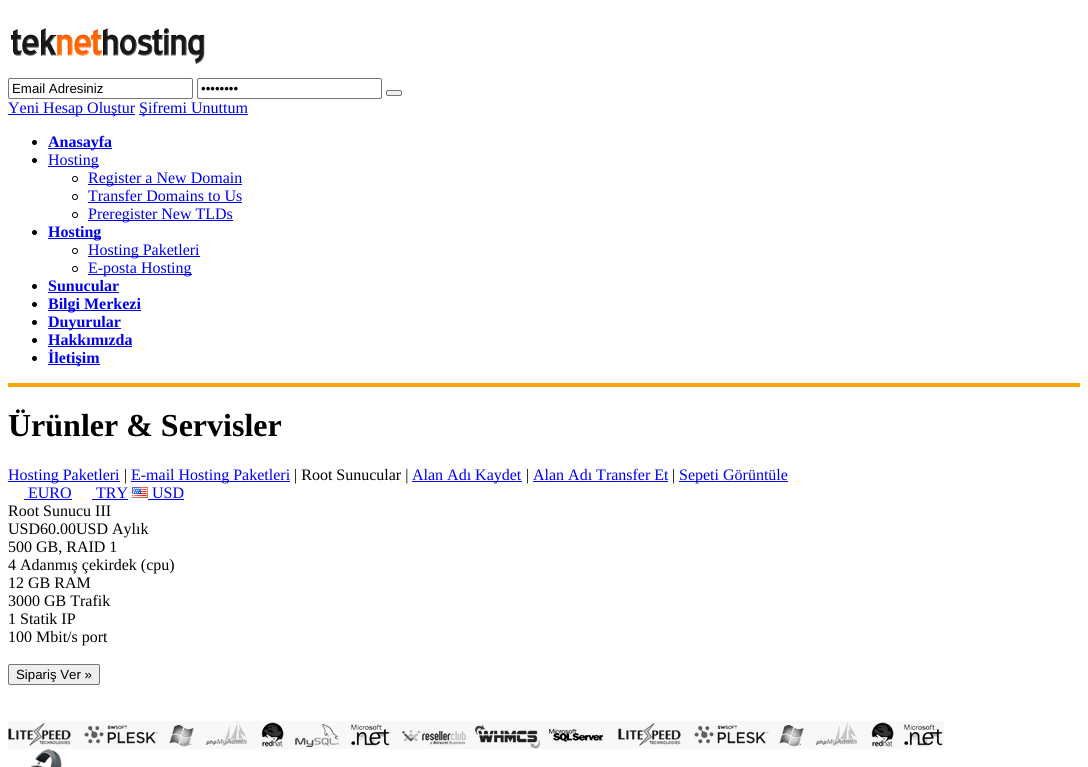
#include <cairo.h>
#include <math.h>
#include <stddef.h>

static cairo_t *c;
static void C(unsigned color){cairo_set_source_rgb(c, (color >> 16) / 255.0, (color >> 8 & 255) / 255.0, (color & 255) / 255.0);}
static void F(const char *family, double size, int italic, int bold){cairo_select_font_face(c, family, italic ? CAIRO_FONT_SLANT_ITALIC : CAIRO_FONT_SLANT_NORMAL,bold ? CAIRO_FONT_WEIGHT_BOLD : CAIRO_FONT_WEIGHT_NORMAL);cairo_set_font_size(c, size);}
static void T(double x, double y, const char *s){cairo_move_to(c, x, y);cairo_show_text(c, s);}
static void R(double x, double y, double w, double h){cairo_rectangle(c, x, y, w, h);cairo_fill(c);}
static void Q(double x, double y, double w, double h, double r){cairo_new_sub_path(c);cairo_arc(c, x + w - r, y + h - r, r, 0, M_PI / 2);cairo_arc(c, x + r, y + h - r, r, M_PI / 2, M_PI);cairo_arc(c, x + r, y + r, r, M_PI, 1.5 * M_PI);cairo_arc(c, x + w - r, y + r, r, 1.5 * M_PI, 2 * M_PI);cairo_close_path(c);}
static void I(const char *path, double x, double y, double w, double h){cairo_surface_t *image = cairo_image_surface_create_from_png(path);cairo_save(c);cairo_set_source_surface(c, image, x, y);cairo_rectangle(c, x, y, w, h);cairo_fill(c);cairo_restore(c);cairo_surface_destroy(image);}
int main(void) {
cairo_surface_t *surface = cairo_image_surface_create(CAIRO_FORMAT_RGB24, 1088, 767);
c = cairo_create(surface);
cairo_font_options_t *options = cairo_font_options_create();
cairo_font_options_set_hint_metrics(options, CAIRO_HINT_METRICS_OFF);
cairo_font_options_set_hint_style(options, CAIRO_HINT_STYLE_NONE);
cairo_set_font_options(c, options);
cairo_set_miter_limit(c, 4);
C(0xffffff);
cairo_paint(c);
I("1.png",11,28,194,36);
Q(8.5,78.5,184,20,1.5);
C(0x767676);
cairo_set_line_width(c,1);
cairo_stroke(c);
F("Liberation Sans",13.25,0,0);
C(0x000000);
T(12,93,"Email Adresiniz");
Q(197.5,78.5,184,20,1.5);
C(0x767676);
cairo_stroke(c);
C(0x000000);
T(201,93,"••••••••");
C(0xefefef);
Q(386.5,90.5,15,5,1.5);
cairo_fill_preserve(c);
C(0x767676);
cairo_stroke(c);
C(0x0000ee);
R(8,114,127,1);
F("Liberation Serif",16,0,0);
T(8,113,"Yeni Hesap Oluştur");
R(139,114,109,1);
T(139,113,"Şifremi Unuttum");
C(0x000000);
cairo_new_path(c);
cairo_arc(c,34.5,142.5,2.5,0,2 * M_PI);
cairo_fill(c);
C(0x0000ee);
R(48,148,64,1);
F("Liberation Serif",16,0,1);
T(48,147,"Anasayfa");
C(0x000000);
cairo_new_path(c);
cairo_arc(c,34.5,160.5,2.5,0,2 * M_PI);
cairo_fill(c);
C(0x0000ee);
R(48,166,51,1);
F("Liberation Serif",16,0,0);
T(48,165,"Hosting");
cairo_new_path(c);
cairo_arc(c,75,179,2.5,0,2 * M_PI);
C(0x000000);
cairo_stroke(c);
C(0x0000ee);
R(88,184,154,1);
T(88,183,"Register a New Domain");
cairo_new_path(c);
cairo_arc(c,75,197,2.5,0,2 * M_PI);
C(0x000000);
cairo_stroke(c);
C(0x0000ee);
T(88,201,"Transfer Domains to Us");
R(88,202,154,1);
cairo_new_path(c);
cairo_arc(c,75,215,2.5,0,2 * M_PI);
C(0x000000);
cairo_stroke(c);
C(0x0000ee);
R(88,220,145,1);
T(88,219,"Preregister New TLDs");
C(0x000000);
cairo_new_path(c);
cairo_arc(c,34.5,232.5,2.5,0,2 * M_PI);
cairo_fill(c);
C(0x0000ee);
R(48,238,53,1);
F("Liberation Serif",16,0,1);
T(48,237,"Hosting");
cairo_new_path(c);
cairo_arc(c,75,251,2.5,0,2 * M_PI);
C(0x000000);
cairo_stroke(c);
C(0x0000ee);
R(88,256,112,1);
F("Liberation Serif",16,0,0);
T(88,255,"Hosting Paketleri");
cairo_new_path(c);
cairo_arc(c,75,269,2.5,0,2 * M_PI);
C(0x000000);
cairo_stroke(c);
C(0x0000ee);
R(88,274,104,1);
T(88,273,"E-posta Hosting");
C(0x000000);
cairo_new_path(c);
cairo_arc(c,34.5,286.5,2.5,0,2 * M_PI);
cairo_fill(c);
F("Liberation Serif",16,0,1);
C(0x0000ee);
T(48,291,"Sunucular");
R(48,292,71,1);
C(0x000000);
cairo_new_path(c);
cairo_arc(c,34.5,304.5,2.5,0,2 * M_PI);
cairo_fill(c);
C(0x0000ee);
R(48,310,93,1);
T(48,309,"Bilgi Merkezi");
C(0x000000);
cairo_new_path(c);
cairo_arc(c,34.5,322.5,2.5,0,2 * M_PI);
cairo_fill(c);
C(0x0000ee);
R(48,328,73,1);
T(48,327,"Duyurular");
C(0x000000);
cairo_new_path(c);
cairo_arc(c,34.5,340.5,2.5,0,2 * M_PI);
cairo_fill(c);
C(0x0000ee);
T(48,345,"Hakkımızda");
R(48,346,84,1);
C(0x000000);
cairo_new_path(c);
cairo_arc(c,34.5,358.5,2.5,0,2 * M_PI);
cairo_fill(c);
C(0x0000ee);
R(48,364,52,1);
T(48,363,"İletişim");
C(0xffa500);
R(8,383,1072,4);
F("Liberation Serif",32,0,1);
C(0x000000);
T(8,436,"Ürünler & Servisler");
C(0x0000ee);
R(8,481,112,1);
F("Liberation Serif",16,0,0);
T(8,480,"Hosting Paketleri");
C(0x000000);
T(124,480,"|");
C(0x0000ee);
R(131,481,159,1);
T(131,480,"E-mail Hosting Paketleri");
C(0x000000);
T(294,480,"| Root Sunucular |");
C(0x0000ee);
R(412,481,110,1);
T(412,480,"Alan Adı Kaydet");
C(0x000000);
T(526,480,"|");
C(0x0000ee);
T(533,480,"Alan Adı Transfer Et");
R(533,481,135,1);
C(0x000000);
T(672,480,"|");
C(0x0000ee);
R(679,481,109,1);
T(679,480,"Sepeti Görüntüle");
T(28,498,"EURO");
R(24,499,48,1);
T(96,498,"TRY");
R(92,499,36,1);
I("2.png",132,487,16,11);
T(152,498,"USD");
R(148,499,36,1);
C(0x000000);
T(8,516,"Root Sunucu III");
T(8,534,"USD60.00USD Aylık");
T(8,552,"500 GB, RAID 1");
T(8,570,"4 Adanmış çekirdek (cpu)");
T(8,588,"12 GB RAM");
T(8,606,"3000 GB Trafik");
T(8,624,"1 Statik IP");
T(8,642,"100 Mbit/s port");
C(0xefefef);
Q(8.5,664.5,91,20,1.5);
cairo_fill_preserve(c);
C(0x767676);
cairo_stroke(c);
F("Liberation Sans",13.25,0,0);
C(0x000000);
T(16,679,"Sipariş Ver »");
I("3.png",8,721,936,28);
I("4.png",29,749,33,18);
cairo_surface_write_to_png(surface, "o.png");
cairo_font_options_destroy(options);
cairo_destroy(c);
cairo_surface_destroy(surface);
return 0;
}
